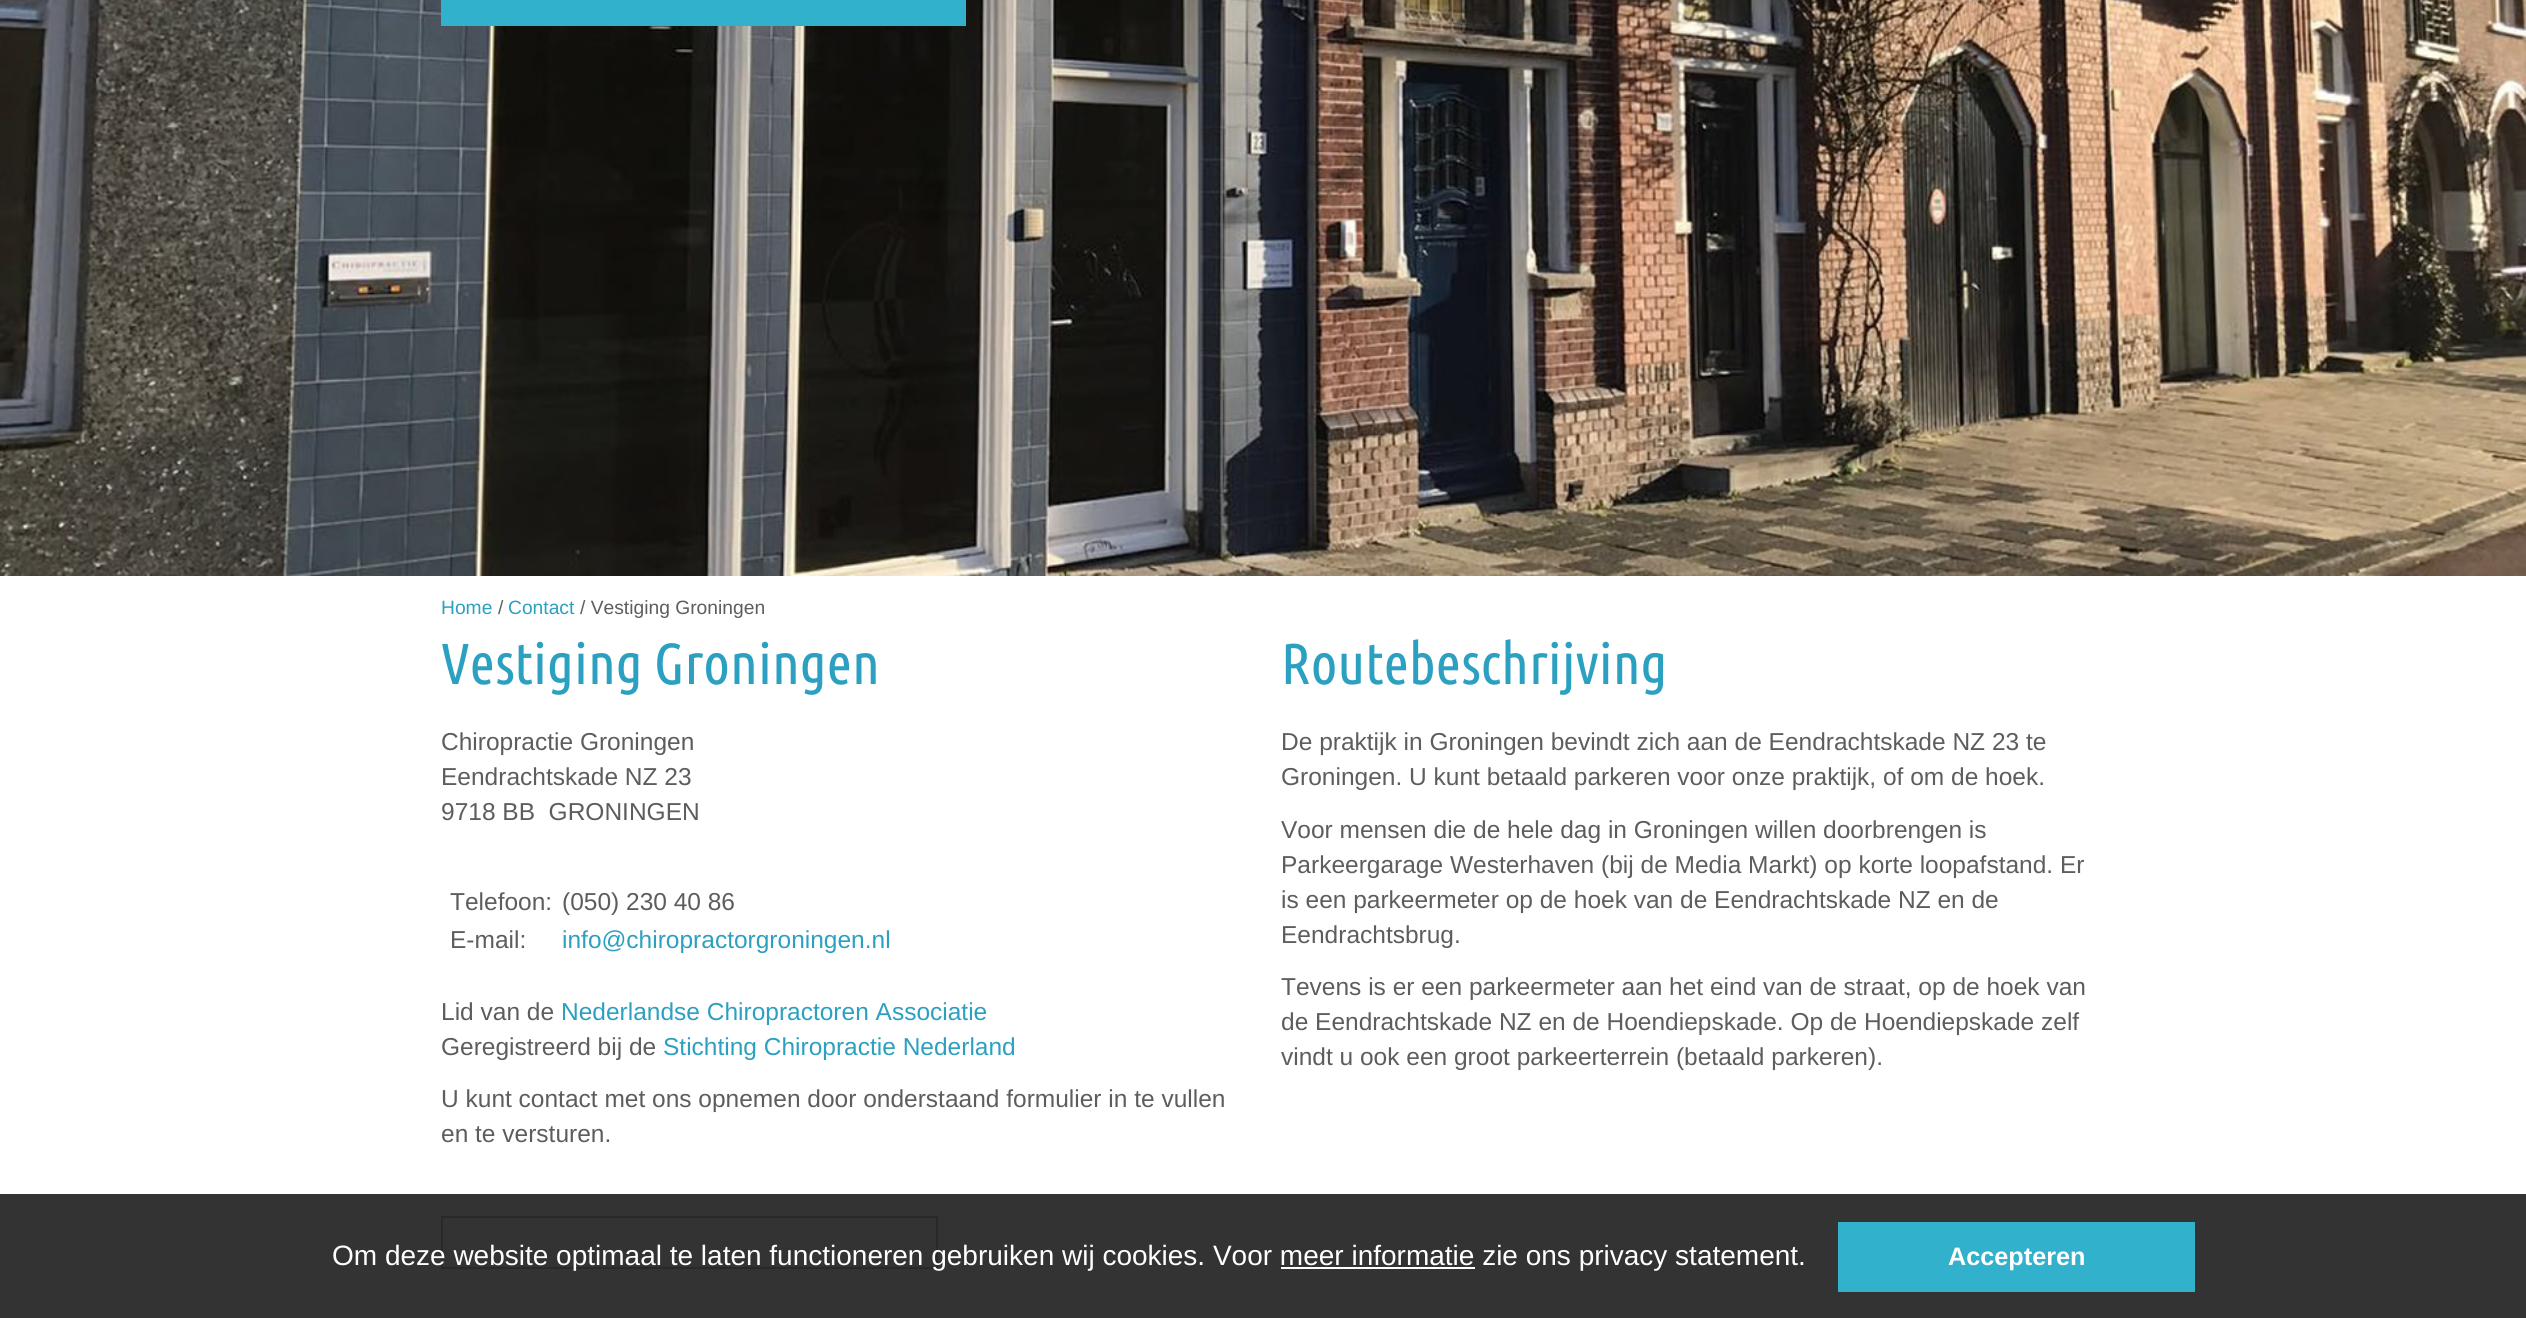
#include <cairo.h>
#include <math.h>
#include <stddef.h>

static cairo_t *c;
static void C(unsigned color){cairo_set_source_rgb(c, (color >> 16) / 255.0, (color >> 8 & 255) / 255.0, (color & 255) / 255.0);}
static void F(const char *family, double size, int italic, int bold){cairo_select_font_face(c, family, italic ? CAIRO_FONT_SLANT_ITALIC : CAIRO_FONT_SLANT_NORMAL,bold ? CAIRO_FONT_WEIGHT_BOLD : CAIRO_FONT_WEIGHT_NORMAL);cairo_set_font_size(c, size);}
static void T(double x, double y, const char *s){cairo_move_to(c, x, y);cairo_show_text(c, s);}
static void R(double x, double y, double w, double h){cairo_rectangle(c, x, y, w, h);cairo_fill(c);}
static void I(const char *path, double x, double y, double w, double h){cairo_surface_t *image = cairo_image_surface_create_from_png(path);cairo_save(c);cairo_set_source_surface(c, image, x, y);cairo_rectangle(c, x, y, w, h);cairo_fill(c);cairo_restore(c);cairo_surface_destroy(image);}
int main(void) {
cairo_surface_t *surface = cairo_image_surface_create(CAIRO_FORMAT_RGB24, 2526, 1318);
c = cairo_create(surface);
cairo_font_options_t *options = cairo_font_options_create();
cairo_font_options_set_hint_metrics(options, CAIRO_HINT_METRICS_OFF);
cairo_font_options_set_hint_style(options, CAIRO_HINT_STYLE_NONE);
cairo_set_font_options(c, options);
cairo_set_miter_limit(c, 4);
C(0xffffff);
cairo_paint(c);
I("1.png",0,0,2526,576);
C(0x32b1cc);
R(441,0,525,26);
F("Liberation Sans",19.25,0,0);
C(0x2ca0c1);
T(441,614,"Home");
C(0x5c5d5e);
T(498,614,"/");
C(0x2ca0c1);
T(508,614,"Contact");
C(0x5c5d5e);
T(580,614,"/ Vestiging Groningen");
F("Liberation Sans",24.5,0,0);
T(441,750,"Chiropractie Groningen");
T(441,785,"Eendrachtskade NZ 23");
T(441,820,"9718 BB  GRONINGEN");
T(450,910,"Telefoon:");
T(562,910,"(050) 230 40 86");
T(450,948,"E-mail:");
C(0x2ca0c1);
T(562,948,"info@chiropractorgroningen.nl");
C(0x5c5d5e);
T(441,1020,"Lid van de");
C(0x2ca0c1);
T(561,1020,"Nederlandse Chiropractoren Associatie");
C(0x5c5d5e);
T(441,1055,"Geregistreerd bij de");
C(0x2ca0c1);
T(663,1055,"Stichting Chiropractie Nederland");
C(0x5c5d5e);
T(441,1107,"U kunt contact met ons opnemen door onderstaand formulier in te vullen");
T(441,1142,"en te versturen.");
cairo_rectangle(c,442,1217,495,51);
C(0xcccccc);
cairo_stroke(c);
F("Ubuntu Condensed",57.75,0,0);
C(0x2ca0c1);
T(1281,684,"Routebeschrijving");
F("Liberation Sans",24.5,0,0);
C(0x5c5d5e);
T(1281,750,"De praktijk in Groningen bevindt zich aan de Eendrachtskade NZ 23 te");
T(1281,785,"Groningen. U kunt betaald parkeren voor onze praktijk, of om de hoek.");
T(1281,838,"Voor mensen die de hele dag in Groningen willen doorbrengen is");
T(1281,873,"Parkeergarage Westerhaven (bij de Media Markt) op korte loopafstand. Er");
T(1281,908,"is een parkeermeter op de hoek van de Eendrachtskade NZ en de");
T(1281,943,"Eendrachtsbrug.");
T(1281,995,"Tevens is er een parkeermeter aan het eind van de straat, op de hoek van");
T(1281,1030,"de Eendrachtskade NZ en de Hoendiepskade. Op de Hoendiepskade zelf");
T(1281,1065,"vindt u ook een groot parkeerterrein (betaald parkeren).");
F("Ubuntu Condensed",57.75,0,0);
C(0x2ca0c1);
T(441,684,"Vestiging Groningen");
cairo_set_source_rgba(c,0,0,0,0.8);
R(0,1194,2526,124);
F("Liberation Sans",28,0,0);
C(0xffffff);
T(332,1265,"Om deze website optimaal te laten functioneren gebruiken wij cookies. Voor meer informatie zie ons privacy statement.");
R(1281,1267,194,2);
C(0x32b1cc);
R(1838,1222,357,70);
F("Liberation Sans",25.25,0,1);
C(0xffffff);
T(1948,1265,"Accepteren");
cairo_surface_write_to_png(surface, "o.png");
cairo_font_options_destroy(options);
cairo_destroy(c);
cairo_surface_destroy(surface);
return 0;
}
